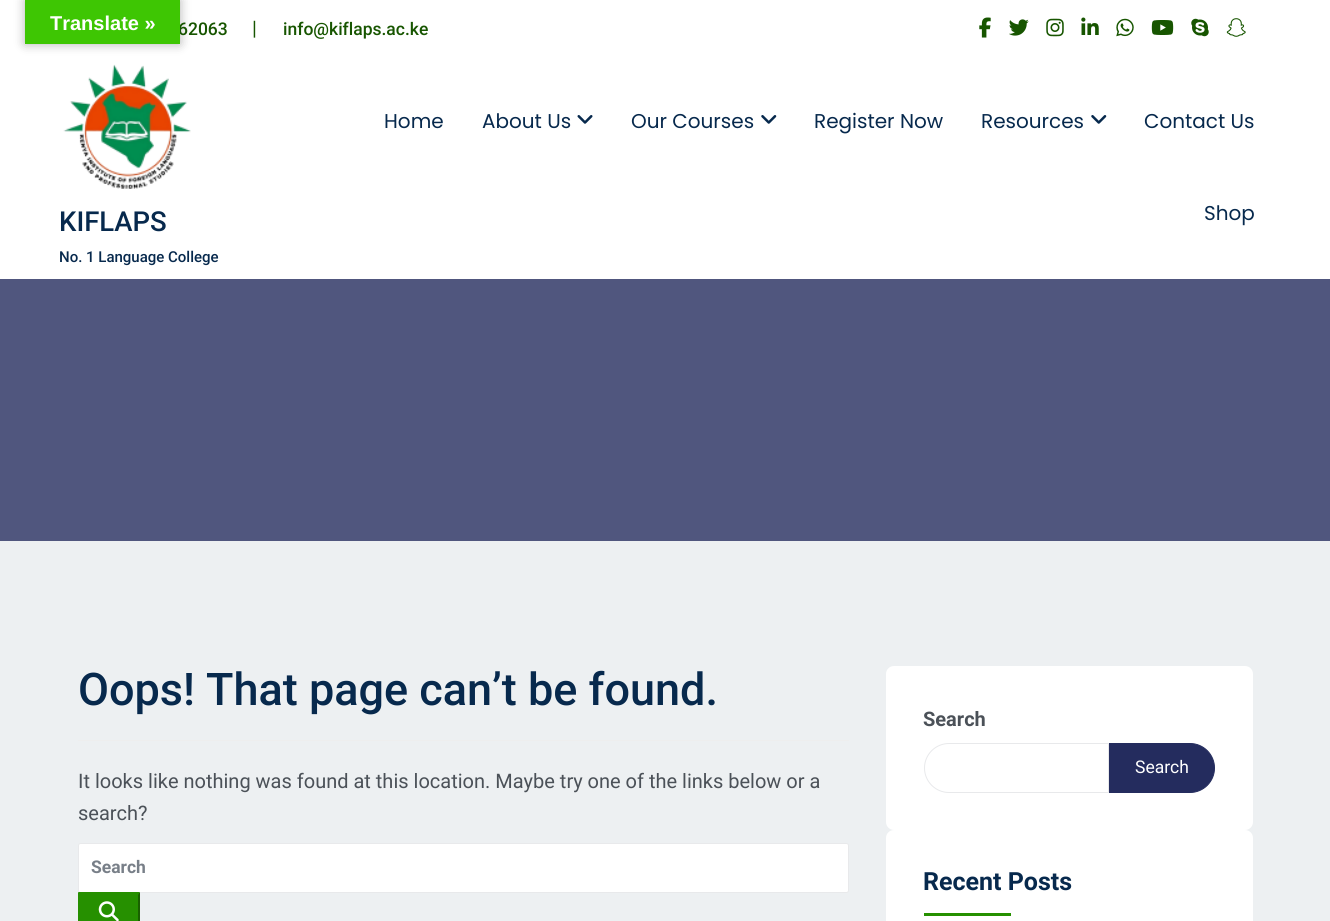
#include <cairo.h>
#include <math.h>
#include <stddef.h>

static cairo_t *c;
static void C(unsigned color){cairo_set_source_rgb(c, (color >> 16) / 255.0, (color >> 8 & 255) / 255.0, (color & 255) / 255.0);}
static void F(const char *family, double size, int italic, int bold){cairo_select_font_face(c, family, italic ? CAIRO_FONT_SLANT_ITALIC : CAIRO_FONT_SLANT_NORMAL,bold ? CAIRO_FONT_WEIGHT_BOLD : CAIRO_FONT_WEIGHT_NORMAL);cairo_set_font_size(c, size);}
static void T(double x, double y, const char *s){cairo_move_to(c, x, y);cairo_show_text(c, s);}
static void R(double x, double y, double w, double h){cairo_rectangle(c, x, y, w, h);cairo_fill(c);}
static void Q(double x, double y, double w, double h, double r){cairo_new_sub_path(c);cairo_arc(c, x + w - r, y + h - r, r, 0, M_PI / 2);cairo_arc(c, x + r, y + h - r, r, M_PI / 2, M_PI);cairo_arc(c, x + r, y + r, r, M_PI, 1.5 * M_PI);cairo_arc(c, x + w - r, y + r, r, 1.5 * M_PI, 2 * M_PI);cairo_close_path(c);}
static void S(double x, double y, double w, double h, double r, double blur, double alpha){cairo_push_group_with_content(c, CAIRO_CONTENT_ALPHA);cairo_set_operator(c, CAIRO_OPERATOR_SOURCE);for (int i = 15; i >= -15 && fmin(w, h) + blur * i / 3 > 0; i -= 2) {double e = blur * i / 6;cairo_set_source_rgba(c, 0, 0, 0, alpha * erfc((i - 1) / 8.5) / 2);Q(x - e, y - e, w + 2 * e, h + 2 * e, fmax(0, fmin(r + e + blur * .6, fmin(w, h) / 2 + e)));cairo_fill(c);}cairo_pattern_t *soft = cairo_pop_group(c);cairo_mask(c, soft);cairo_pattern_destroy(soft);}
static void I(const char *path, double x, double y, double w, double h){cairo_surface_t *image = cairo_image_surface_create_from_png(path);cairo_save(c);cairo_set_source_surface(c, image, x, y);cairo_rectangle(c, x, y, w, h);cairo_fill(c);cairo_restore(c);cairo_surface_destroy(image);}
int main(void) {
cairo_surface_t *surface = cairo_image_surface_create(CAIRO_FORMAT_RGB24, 1330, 921);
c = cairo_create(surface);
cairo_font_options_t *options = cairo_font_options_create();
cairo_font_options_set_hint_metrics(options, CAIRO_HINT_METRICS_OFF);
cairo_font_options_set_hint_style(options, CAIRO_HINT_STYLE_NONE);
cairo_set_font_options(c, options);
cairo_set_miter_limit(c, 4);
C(0xffffff);
cairo_paint(c);
C(0x000000);
S(25,0,155,44,0,5.5,.3);
F("Roboto Medium",17.5,0,0);
C(0x175500);
T(178,35,"62063");
C(0x3ec603);
R(25,0,155,44);
F("Liberation Sans",20,0,1);
C(0xffffff);
T(50,30,"Translate »");
F("Roboto",20,0,0);
C(0x175500);
T(252,35,"|");
F("Roboto Medium",17.5,0,0);
T(283,35,"info@kiflaps.ac.ke");
I("1.png",979,17,12,21);
I("2.png",1009,19,20,17);
I("3.png",1046,18,18,19);
I("4.png",1081,17,18,18);
I("5.png",1116,18,18,19);
I("6.png",1151,20,23,15);
I("7.png",1191,18,18,19);
I("8.png",1226,18,20,19);
F("Poppins",20,0,0);
C(0x07294d);
T(384,128,"Home");
T(482,128,"About Us");
I("9.png",577,115,16,9);
T(631,128,"Our Courses");
I("10.png",761,115,16,9);
T(814,128,"Register Now");
T(981,128,"Resources");
I("10.png",1091,115,16,9);
T(1144,128,"Contact Us");
T(1204,220,"Shop");
I("11.png",63,64,128,125);
F("Roboto Medium",27.5,0,0);
T(59,231,"KIFLAPS");
F("Roboto Medium",15,0,0);
T(59,262,"No. 1 Language College");
C(0x50567e);
R(0,279,1330,262);
C(0xedf0f2);
R(0,541,1330,380);
C(0xeeeeee);
R(78,740,771,1);
F("Roboto Medium",45,0,0);
C(0x07294d);
T(78,705,"Oops! That page can’t be found.");
F("Roboto",20,0,0);
C(0x4b5158);
T(78,788,"It looks like nothing was found at this location. Maybe try one of the links below or a");
T(78,820,"search?");
C(0xffffff);
Q(78.5,843.5,770,49,2);
cairo_fill_preserve(c);
C(0xe8e9eb);
cairo_set_line_width(c,1);
cairo_stroke(c);
F("Roboto",17.5,0,1);
C(0x787f88);
T(91,873,"Search");
C(0x269000);
R(78,893,62,28);
cairo_new_path(c);
cairo_move_to(c,78,892);
cairo_line_to(c,140,892);
cairo_line_to(c,138,895);
cairo_line_to(c,80,895);
cairo_close_path(c);
cairo_fill(c);
C(0x196000);
cairo_new_path(c);
cairo_move_to(c,140,892);
cairo_line_to(c,140,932);
cairo_line_to(c,138,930);
cairo_line_to(c,138,895);
cairo_close_path(c);
cairo_fill(c);
C(0x269000);
cairo_new_path(c);
cairo_move_to(c,78,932);
cairo_line_to(c,78,892);
cairo_line_to(c,80,895);
cairo_line_to(c,80,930);
cairo_close_path(c);
cairo_fill(c);
I("12.png",98,901,21,20);
C(0xffffff);
Q(886,666,367,164,8);
cairo_fill(c);
F("Roboto",20,0,1);
C(0x4b5158);
T(923,726,"Search");
cairo_new_path(c);
cairo_move_to(c,949,743.5);
cairo_line_to(c,1108,743.5);
cairo_curve_to(c,1108.5,743.5,1108.5,743.5,1108.5,744);
cairo_line_to(c,1108.5,792);
cairo_curve_to(c,1108.5,792.5,1108.5,792.5,1108,792.5);
cairo_line_to(c,949,792.5);
cairo_curve_to(c,935.5,792.5,924.5,781.5,924.5,768);
cairo_curve_to(c,924.5,754.5,935.5,743.5,949,743.5);
cairo_close_path(c);
C(0xe8e9eb);
cairo_stroke(c);
C(0x242c5e);
cairo_new_path(c);
cairo_move_to(c,1109.5,743.5);
cairo_line_to(c,1190,743.5);
cairo_curve_to(c,1203.5,743.5,1214.5,754.5,1214.5,768);
cairo_curve_to(c,1214.5,781.5,1203.5,792.5,1190,792.5);
cairo_line_to(c,1109.5,792.5);
cairo_close_path(c);
cairo_fill_preserve(c);
cairo_stroke(c);
F("Roboto",17.5,0,0);
C(0xffffff);
T(1135,773,"Search");
Q(886,830,367,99,8);
cairo_fill(c);
F("Roboto",25,0,1);
C(0x07294d);
T(923,890,"Recent Posts");
C(0x269000);
R(924,913,87,3);
cairo_surface_write_to_png(surface, "o.png");
cairo_font_options_destroy(options);
cairo_destroy(c);
cairo_surface_destroy(surface);
return 0;
}
